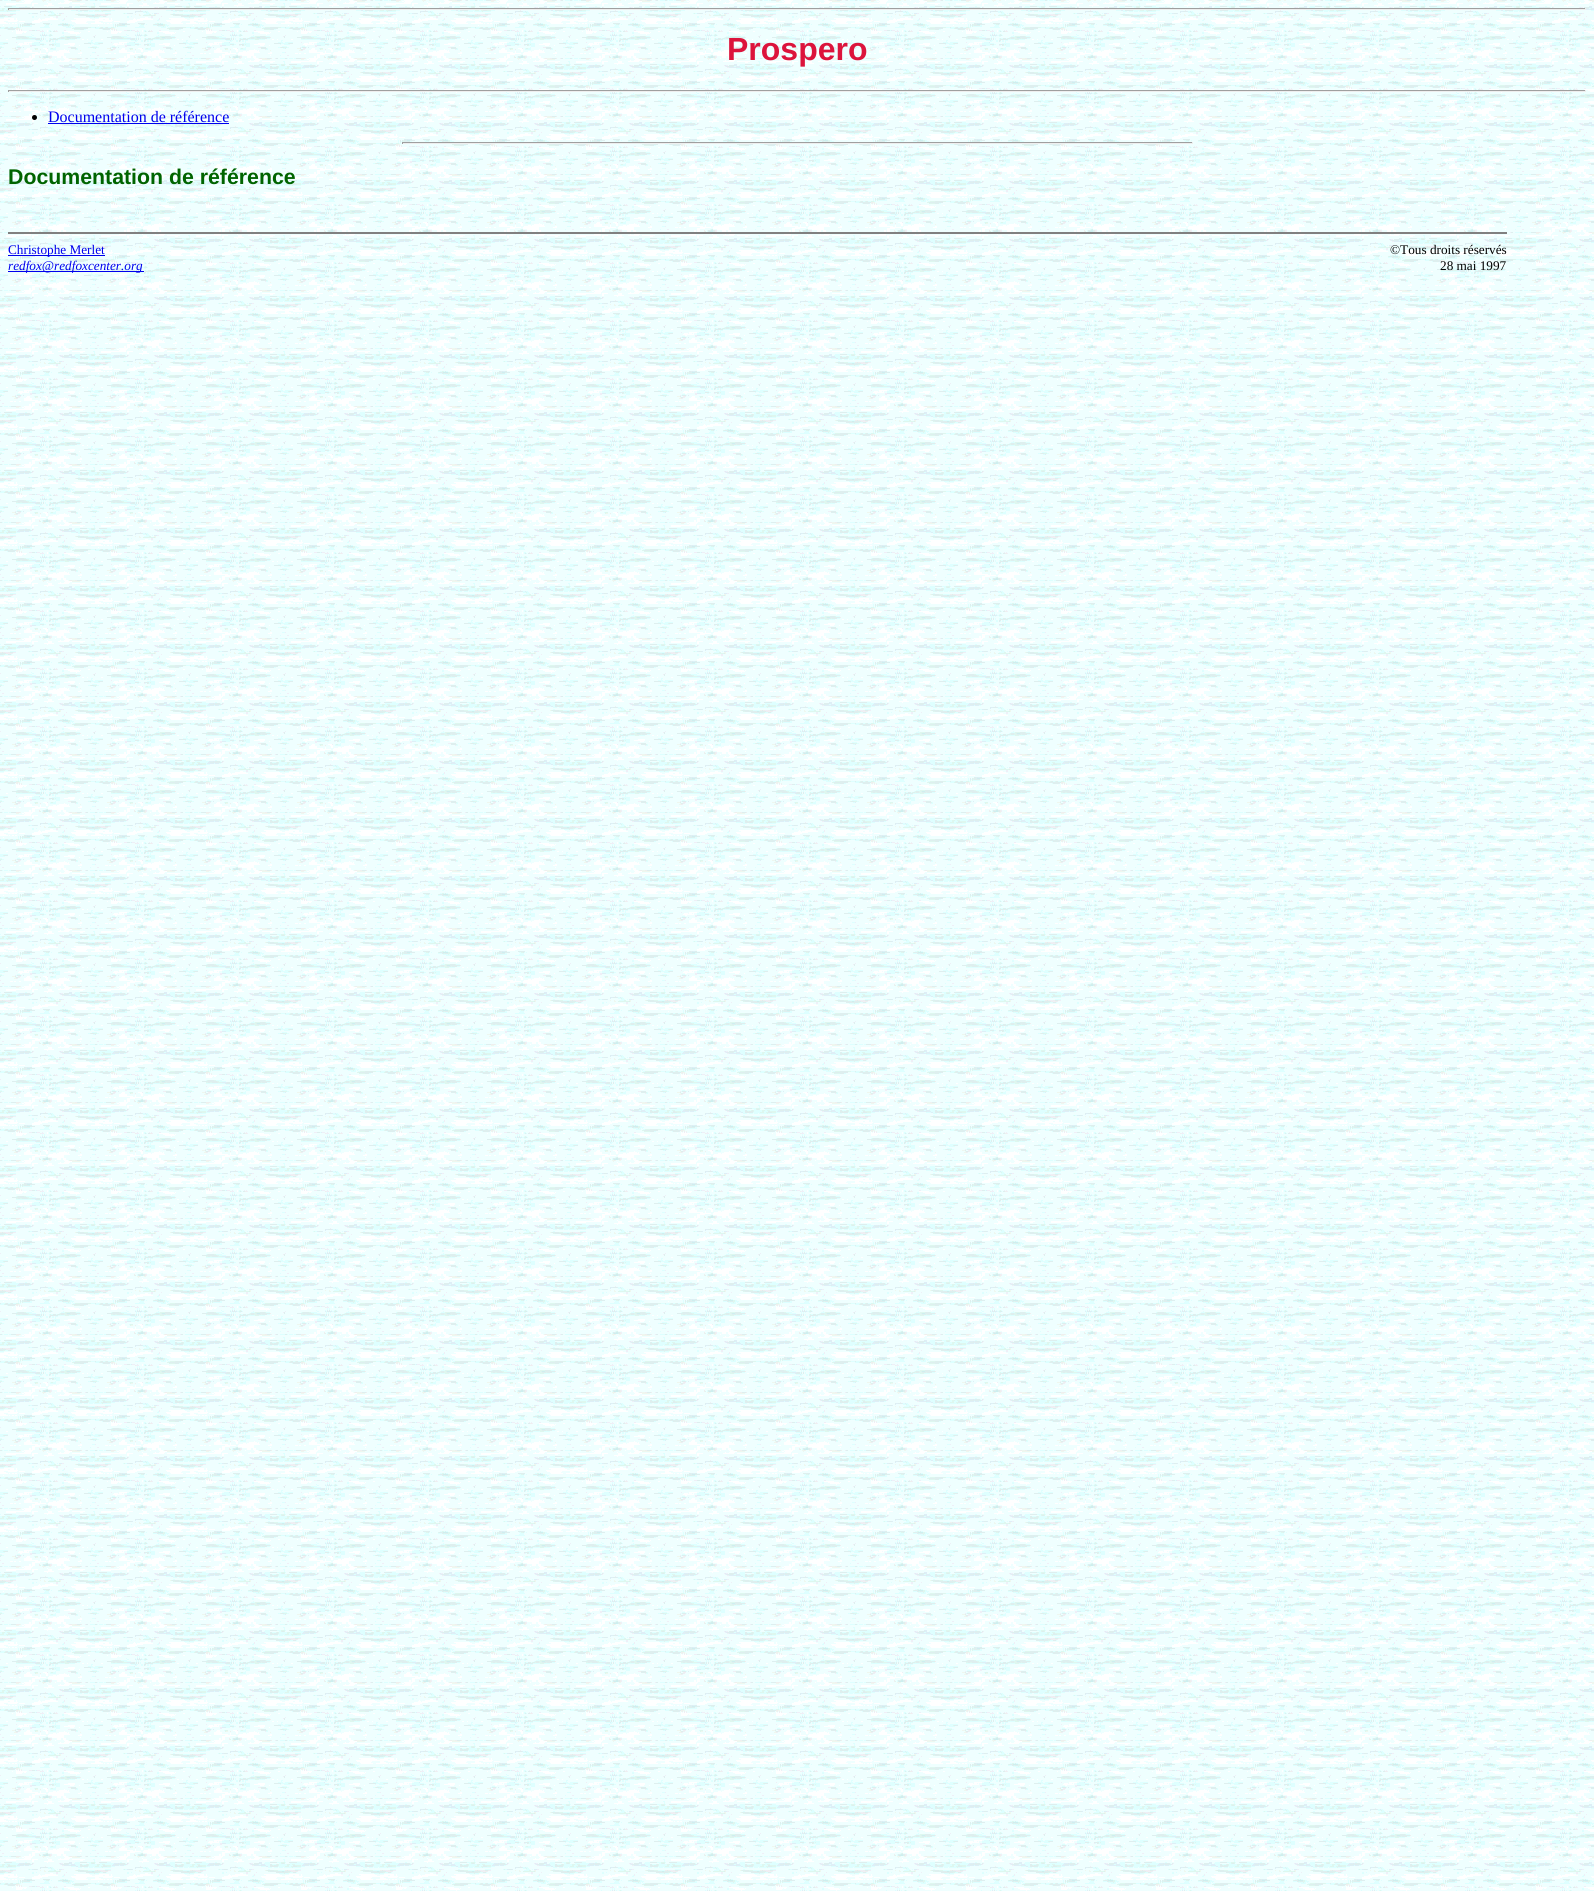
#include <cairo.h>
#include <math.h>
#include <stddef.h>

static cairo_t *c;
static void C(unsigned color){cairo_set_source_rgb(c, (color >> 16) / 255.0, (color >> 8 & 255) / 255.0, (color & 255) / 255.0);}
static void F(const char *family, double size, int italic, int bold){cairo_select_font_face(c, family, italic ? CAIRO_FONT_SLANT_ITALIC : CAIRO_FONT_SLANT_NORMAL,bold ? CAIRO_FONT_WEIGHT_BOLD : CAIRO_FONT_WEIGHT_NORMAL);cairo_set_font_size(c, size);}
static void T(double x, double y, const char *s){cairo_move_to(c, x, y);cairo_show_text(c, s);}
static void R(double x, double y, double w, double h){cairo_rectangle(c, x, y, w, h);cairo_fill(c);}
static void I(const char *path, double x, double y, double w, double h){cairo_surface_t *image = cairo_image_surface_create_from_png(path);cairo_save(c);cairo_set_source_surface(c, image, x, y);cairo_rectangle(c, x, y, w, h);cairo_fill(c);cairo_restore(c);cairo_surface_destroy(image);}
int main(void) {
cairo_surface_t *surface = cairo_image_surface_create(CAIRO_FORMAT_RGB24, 1594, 1891);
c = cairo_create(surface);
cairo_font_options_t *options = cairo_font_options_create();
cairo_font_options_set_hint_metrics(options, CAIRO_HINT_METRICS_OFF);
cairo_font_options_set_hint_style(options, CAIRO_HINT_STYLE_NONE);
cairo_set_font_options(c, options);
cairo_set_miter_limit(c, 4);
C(0xffffff);
cairo_paint(c);
I("1.png",0,0,1594,1891);
C(0x9f9f9f);
R(8,8,1578,1);
C(0xeeeeee);
R(1585,8,1,2);
R(8,9,1578,1);
C(0x9f9f9f);
R(8,8,1,2);
F("Liberation Sans",32,0,1);
C(0xdc143c);
T(727,60,"Prospero");
C(0x9f9f9f);
R(8,90,1578,1);
C(0xeeeeee);
R(1585,90,1,2);
R(8,91,1578,1);
C(0x9f9f9f);
R(8,90,1,2);
C(0x000000);
cairo_new_path(c);
cairo_arc(c,34.5,117.5,2.5,0,2 * M_PI);
cairo_fill(c);
F("Liberation Serif",16,0,0);
C(0x0000ee);
T(48,122,"Documentation de référence");
R(48,123,181,1);
C(0x9f9f9f);
R(402,142,791,1);
C(0xeeeeee);
R(1192,142,1,2);
R(402,143,791,1);
C(0x9f9f9f);
R(402,142,1,2);
F("Liberation Sans",21.3,0,1);
C(0x006400);
T(8,184,"Documentation de référence");
C(0x808080);
R(8,232,1499,2);
C(0x0000ee);
R(8,255,97,1);
F("Liberation Serif",13.25,0,0);
T(8,254,"Christophe Merlet");
R(8,271,136,1);
F("Liberation Serif",13.25,1,0);
T(8,270,"redfox@redfoxcenter.org");
F("Liberation Serif",13.25,0,0);
C(0x000000);
T(1390,254,"©Tous droits réservés");
T(1440,270,"28 mai 1997");
cairo_surface_write_to_png(surface, "o.png");
cairo_font_options_destroy(options);
cairo_destroy(c);
cairo_surface_destroy(surface);
return 0;
}
